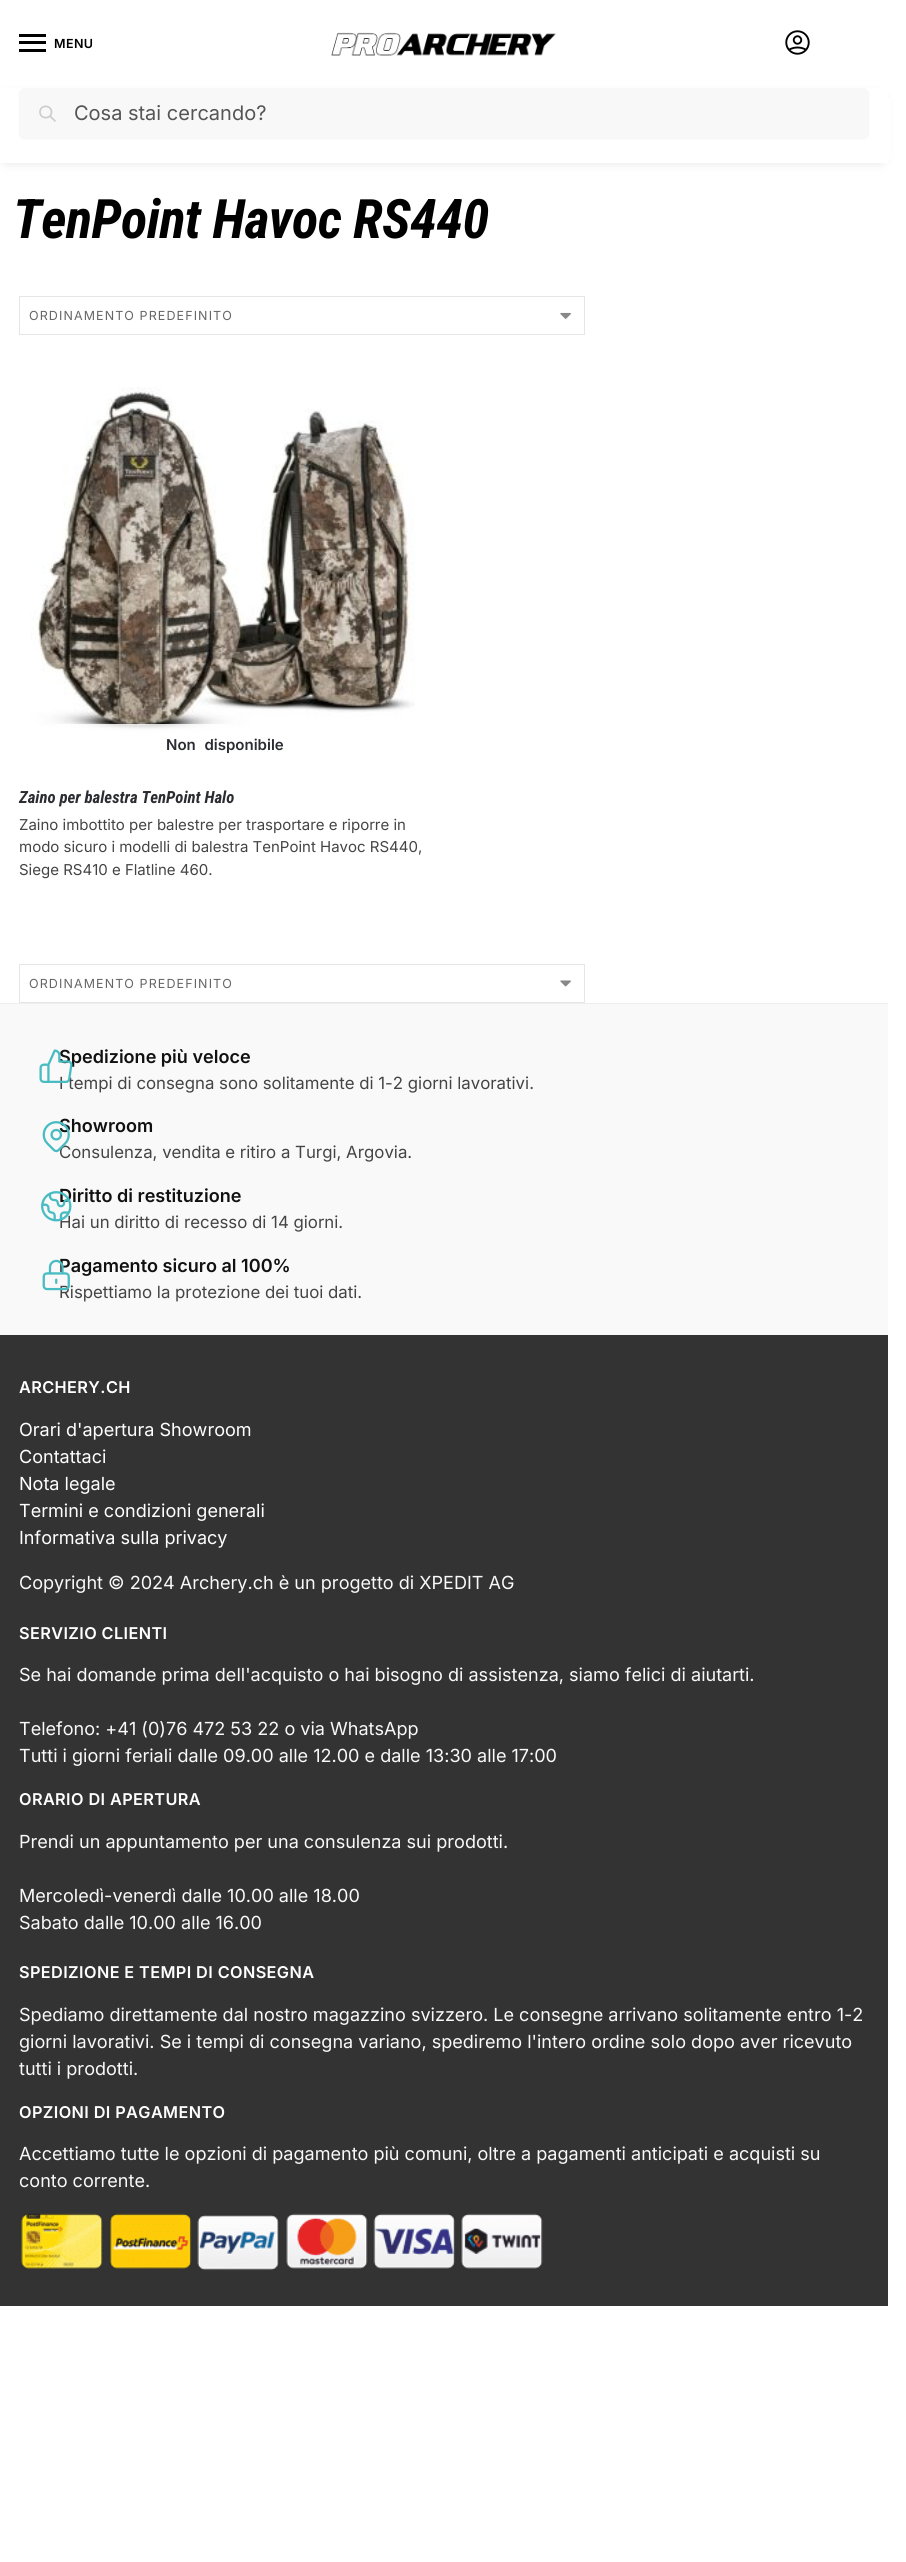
#include <cairo.h>
#include <math.h>
#include <stddef.h>

static cairo_t *c;
static void C(unsigned color){cairo_set_source_rgb(c, (color >> 16) / 255.0, (color >> 8 & 255) / 255.0, (color & 255) / 255.0);}
static void F(const char *family, double size, int italic, int bold){cairo_select_font_face(c, family, italic ? CAIRO_FONT_SLANT_ITALIC : CAIRO_FONT_SLANT_NORMAL,bold ? CAIRO_FONT_WEIGHT_BOLD : CAIRO_FONT_WEIGHT_NORMAL);cairo_set_font_size(c, size);}
static void T(double x, double y, const char *s){cairo_move_to(c, x, y);cairo_show_text(c, s);}
static void L(double x, double y, const char *s, double letter, double word){cairo_move_to(c, x, y);while (*s) {char ch[5] = {0};int n = 0;do ch[n++] = *s++; while ((*s & 0xC0) == 0x80);cairo_show_text(c, ch);cairo_rel_move_to(c, letter + word * (*ch == ' '), 0);}}
static void R(double x, double y, double w, double h){cairo_rectangle(c, x, y, w, h);cairo_fill(c);}
static void Q(double x, double y, double w, double h, double r){cairo_new_sub_path(c);cairo_arc(c, x + w - r, y + h - r, r, 0, M_PI / 2);cairo_arc(c, x + r, y + h - r, r, M_PI / 2, M_PI);cairo_arc(c, x + r, y + r, r, M_PI, 1.5 * M_PI);cairo_arc(c, x + w - r, y + r, r, 1.5 * M_PI, 2 * M_PI);cairo_close_path(c);}
static void S(double x, double y, double w, double h, double r, double blur, double alpha){cairo_push_group_with_content(c, CAIRO_CONTENT_ALPHA);cairo_set_operator(c, CAIRO_OPERATOR_SOURCE);for (int i = 15; i >= -15 && fmin(w, h) + blur * i / 3 > 0; i -= 2) {double e = blur * i / 6;cairo_set_source_rgba(c, 0, 0, 0, alpha * erfc((i - 1) / 8.5) / 2);Q(x - e, y - e, w + 2 * e, h + 2 * e, fmax(0, fmin(r + e + blur * .6, fmin(w, h) / 2 + e)));cairo_fill(c);}cairo_pattern_t *soft = cairo_pop_group(c);cairo_mask(c, soft);cairo_pattern_destroy(soft);}
static void I(const char *path, double x, double y, double w, double h){cairo_surface_t *image = cairo_image_surface_create_from_png(path);cairo_save(c);cairo_set_source_surface(c, image, x, y);cairo_rectangle(c, x, y, w, h);cairo_fill(c);cairo_restore(c);cairo_surface_destroy(image);}
int main(void) {
cairo_surface_t *surface = cairo_image_surface_create(CAIRO_FORMAT_RGB24, 906, 2562);
c = cairo_create(surface);
cairo_font_options_t *options = cairo_font_options_create();
cairo_font_options_set_hint_metrics(options, CAIRO_HINT_METRICS_OFF);
cairo_font_options_set_hint_style(options, CAIRO_HINT_STYLE_NONE);
cairo_set_font_options(c, options);
cairo_set_miter_limit(c, 4);
C(0xffffff);
cairo_paint(c);
C(0x000000);
R(19,34,27,3);
R(19,41,27,3);
F("Inter SemiBold",12.5,0,0);
L(54,48,"MENU",.4,0);
R(19,49,27,3);
I("1.png",331,32,225,24);
I("2.png",785,30,25,25);
C(0x000000);
S(6,98,875,62,0,6,.18);
C(0xffffff);
R(0,88,888,75);
C(0x000000);
S(19,89,850,50,6,1,.05);
C(0xf8f8f8);
Q(19,88,850,50,6);
cairo_fill(c);
cairo_new_path(c);
cairo_move_to(c,55,121);
cairo_line_to(c,50,116);
cairo_move_to(c,51.5,112);
cairo_curve_to(c,51.5,119.5,40,119.5,40,112);
cairo_curve_to(c,40,104.5,51.5,104.5,51.5,112);
cairo_close_path(c);
C(0xcccccc);
cairo_set_line_width(c,1.7);
cairo_set_line_cap(c,CAIRO_LINE_CAP_ROUND);
cairo_set_line_join(c,CAIRO_LINE_JOIN_ROUND);
cairo_stroke(c);
F("Inter",20,0,0);
C(0x555555);
T(74,120,"Cosa stai cercando?");
C(0xffffff);
R(888,98,3,62);
F("Roboto Condensed",54.4,1,1);
C(0x000000);
L(13,238,"TenPoint Havoc RS440",-.5,0);
cairo_rectangle(c,19.5,296.5,565,38);
C(0xe6e6e6);
cairo_set_line_width(c,1);
cairo_set_line_cap(c,CAIRO_LINE_CAP_BUTT);
cairo_set_line_join(c,CAIRO_LINE_JOIN_MITER);
cairo_stroke(c);
I("3.png",560,312,11,7);
F("Inter",12.5,0,0);
C(0x666666);
L(29,320,"ORDINAMENTO PREDEFINITO",1.1,0);
I("4.png",30,387,385,346);
cairo_set_source_rgba(c,1,1,1,0.85);
R(55,724,176,9);
F("Inter SemiBold",15,0,0);
C(0x2c2d33);
L(166,750,"Non disponibile",0,5);
F("Roboto Condensed",16.8,1,1);
T(19,803,"Zaino per balestra TenPoint Halo");
F("Inter",15,0,0);
C(0x444444);
T(19,830,"Zaino imbottito per balestre per trasportare e riporre in");
T(19,852,"modo sicuro i modelli di balestra TenPoint Havoc RS440,");
T(19,875,"Siege RS410 e Flatline 460.");
cairo_rectangle(c,19.5,964.5,565,38);
C(0xe6e6e6);
cairo_stroke(c);
I("5.png",560,980,11,7);
F("Inter",12.5,0,0);
C(0x666666);
L(29,988,"ORDINAMENTO PREDEFINITO",1.1,0);
C(0xf9f9f9);
R(0,1004,888,331);
C(0xeeeeee);
R(0,1003,888,1);
F("Inter SemiBold",18.05,0,0);
C(0x111111);
T(59,1063,"Spedizione più veloce");
F("Inter",16.8,0,0);
C(0x444444);
T(59,1089,"I tempi di consegna sono solitamente di 1-2 giorni lavorativi.");
I("6.png",39,1049,34,34);
F("Inter SemiBold",18.05,0,0);
C(0x111111);
T(59,1132,"Showroom");
F("Inter",16.8,0,0);
C(0x444444);
T(59,1158,"Consulenza, vendita e ritiro a Turgi, Argovia.");
I("7.png",42,1121,28,32);
F("Inter SemiBold",18.05,0,0);
C(0x111111);
T(59,1202,"Diritto di restituzione");
F("Inter",16.8,0,0);
C(0x444444);
T(59,1228,"Hai un diritto di recesso di 14 giorni.");
I("8.png",41,1191,31,31);
F("Inter SemiBold",18.05,0,0);
C(0x111111);
T(59,1272,"Pagamento sicuro al 100%");
F("Inter",16.8,0,0);
C(0x444444);
T(59,1298,"Rispettiamo la protezione dei tuoi dati.");
I("9.png",42,1259,28,32);
C(0x333333);
R(0,1335,888,971);
F("Inter SemiBold",16.25,0,0);
C(0xffffff);
L(19,1393,"ARCHERY.CH",.4,0);
F("Inter",18.05,0,0);
T(19,1436,"Orari d'apertura Showroom");
T(19,1463,"Contattaci");
T(19,1490,"Nota legale");
T(19,1517,"Termini e condizioni generali");
T(19,1544,"Informativa sulla privacy");
C(0xfaf9f9);
T(19,1589,"Copyright © 2024 Archery.ch è un progetto di XPEDIT AG");
F("Inter SemiBold",16.25,0,0);
C(0xffffff);
L(19,1639,"SERVIZIO CLIENTI",.4,0);
F("Inter",18.05,0,0);
C(0xfaf9f9);
T(19,1681,"Se hai domande prima dell'acquisto o hai bisogno di assistenza, siamo felici di aiutarti.");
T(19,1735,"Telefono: +41 (0)76 472 53 22 o via WhatsApp");
T(19,1762,"Tutti i giorni feriali dalle 09.00 alle 12.00 e dalle 13:30 alle 17:00");
F("Inter SemiBold",16.25,0,0);
C(0xffffff);
L(19,1805,"ORARIO DI APERTURA",.4,0);
F("Inter",18.05,0,0);
C(0xfaf9f9);
T(19,1848,"Prendi un appuntamento per una consulenza sui prodotti.");
T(19,1902,"Mercoledì-venerdì dalle 10.00 alle 18.00");
T(19,1929,"Sabato dalle 10.00 alle 16.00");
F("Inter SemiBold",16.25,0,0);
C(0xffffff);
L(19,1978,"SPEDIZIONE E TEMPI DI CONSEGNA",.4,0);
F("Inter",18.05,0,0);
C(0xfaf9f9);
T(19,2021,"Spediamo direttamente dal nostro magazzino svizzero. Le consegne arrivano solitamente entro 1-2");
T(19,2048,"giorni lavorativi. Se i tempi di consegna variano, spediremo l'intero ordine solo dopo aver ricevuto");
T(19,2075,"tutti i prodotti.");
F("Inter SemiBold",16.25,0,0);
C(0xffffff);
L(19,2118,"OPZIONI DI PAGAMENTO",.4,0);
F("Inter",18.05,0,0);
C(0xfaf9f9);
T(19,2160,"Accettiamo tutte le opzioni di pagamento più comuni, oltre a pagamenti anticipati e acquisti su");
T(19,2187,"conto corrente.");
I("10.png",21,2213,522,58);
cairo_surface_write_to_png(surface, "o.png");
cairo_font_options_destroy(options);
cairo_destroy(c);
cairo_surface_destroy(surface);
return 0;
}
